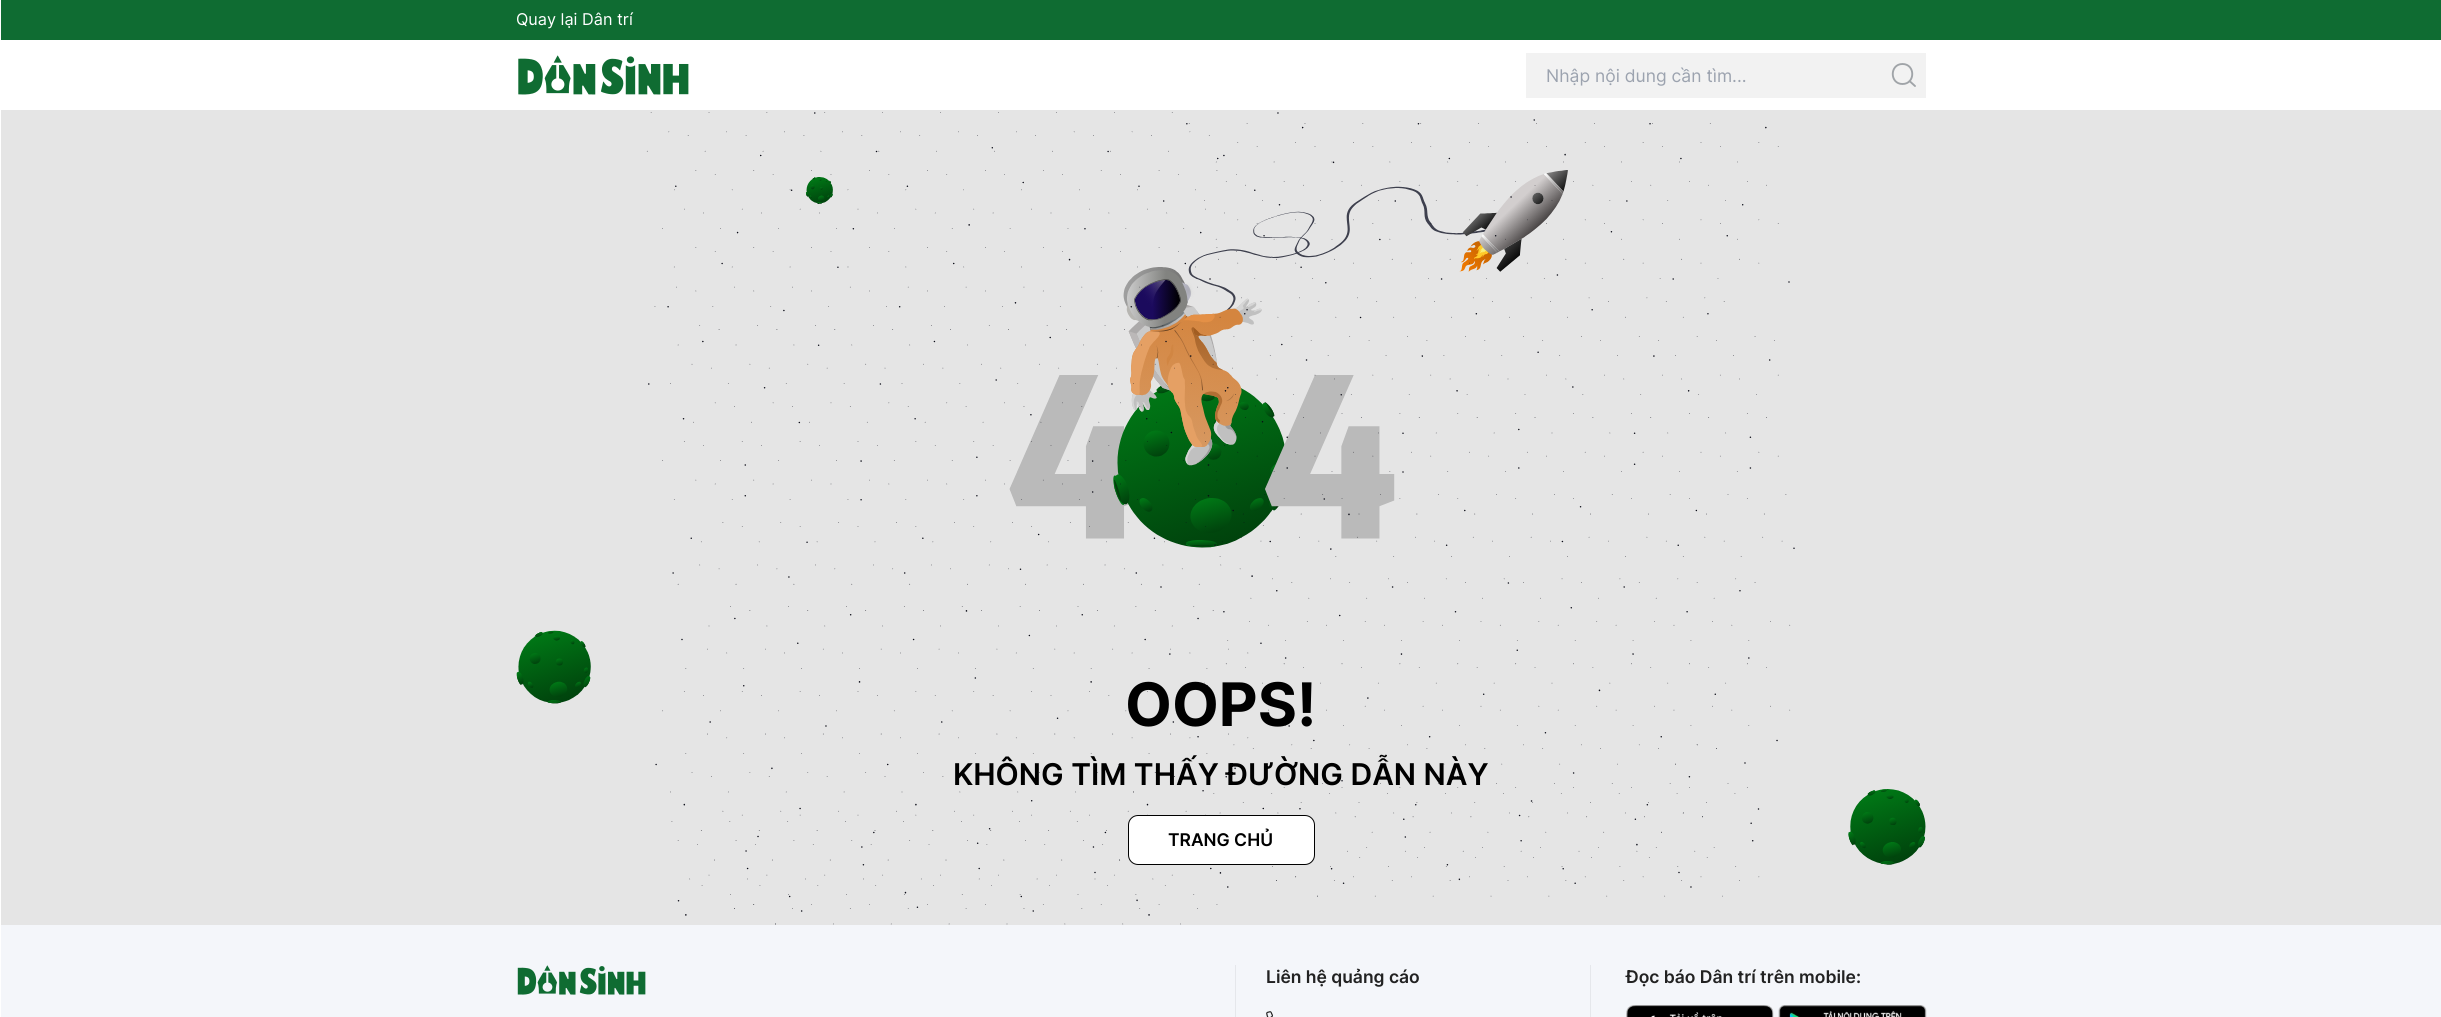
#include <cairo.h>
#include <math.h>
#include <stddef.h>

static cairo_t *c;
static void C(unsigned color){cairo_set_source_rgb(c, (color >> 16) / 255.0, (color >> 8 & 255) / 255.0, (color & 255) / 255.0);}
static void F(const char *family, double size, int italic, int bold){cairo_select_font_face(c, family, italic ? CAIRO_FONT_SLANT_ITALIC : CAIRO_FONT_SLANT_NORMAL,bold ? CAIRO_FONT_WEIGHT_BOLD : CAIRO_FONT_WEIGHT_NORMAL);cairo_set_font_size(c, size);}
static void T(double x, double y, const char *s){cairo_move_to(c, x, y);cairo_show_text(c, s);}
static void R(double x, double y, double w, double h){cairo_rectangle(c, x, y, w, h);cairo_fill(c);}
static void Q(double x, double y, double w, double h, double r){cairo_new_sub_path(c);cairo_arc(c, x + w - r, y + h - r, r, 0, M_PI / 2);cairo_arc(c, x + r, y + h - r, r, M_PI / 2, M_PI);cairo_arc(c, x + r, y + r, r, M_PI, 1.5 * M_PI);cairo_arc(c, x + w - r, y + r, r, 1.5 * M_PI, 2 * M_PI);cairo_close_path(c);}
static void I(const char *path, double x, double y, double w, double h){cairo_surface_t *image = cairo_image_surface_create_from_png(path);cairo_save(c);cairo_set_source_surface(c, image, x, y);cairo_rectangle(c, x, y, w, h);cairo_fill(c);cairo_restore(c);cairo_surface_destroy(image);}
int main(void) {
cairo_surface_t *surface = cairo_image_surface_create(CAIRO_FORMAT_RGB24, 2441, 1017);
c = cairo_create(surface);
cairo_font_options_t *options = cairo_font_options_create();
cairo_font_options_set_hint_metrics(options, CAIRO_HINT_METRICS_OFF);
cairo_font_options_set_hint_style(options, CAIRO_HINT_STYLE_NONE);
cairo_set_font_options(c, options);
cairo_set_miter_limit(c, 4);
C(0xffffff);
cairo_paint(c);
C(0x0f6c32);
R(1,0,2440,40);
F("Inter",16.25,0,0);
C(0xffffff);
T(516,25,"Quay lại Dân trí");
I("1.png",518,55,171,40);
C(0xf2f2f2);
R(1526,53,400,45);
F("Inter",17.5,0,0);
C(0x9ca3af);
T(1546,82,"Nhập nội dung cần tìm...");
cairo_new_path(c);
cairo_move_to(c,1902.5,84);
cairo_curve_to(c,1915.5,84,1915.5,64,1902.5,64);
cairo_curve_to(c,1889.5,64,1889.5,84,1902.5,84);
cairo_move_to(c,1915,86);
cairo_line_to(c,1909.5,81);
C(0xa0a4a8);
cairo_set_line_width(c,1.9);
cairo_set_line_cap(c,CAIRO_LINE_CAP_ROUND);
cairo_set_line_join(c,CAIRO_LINE_JOIN_ROUND);
cairo_stroke(c);
C(0xe5e5e5);
R(1,110,2440,815);
I("3.png",516,170,1410,695);
I("2.png",646,112,1149,813);
F("Inter",60,0,1);
C(0x000000);
T(1125,726,"OOPS!");
F("Inter SemiBold",30,0,0);
T(953,785,"KHÔNG TÌM THẤY ĐƯỜNG DẪN NÀY");
C(0xffffff);
Q(1128.5,815.5,186,49,9.5);
cairo_fill_preserve(c);
C(0x000000);
cairo_set_line_width(c,1);
cairo_set_line_cap(c,CAIRO_LINE_CAP_BUTT);
cairo_set_line_join(c,CAIRO_LINE_JOIN_MITER);
cairo_stroke(c);
F("Inter SemiBold",17.5,0,0);
T(1168,846,"TRANG CHỦ");
C(0xf4f6fa);
R(1,925,2440,92);
I("4.png",517,965,129,30);
C(0xe5e7eb);
R(1235,965,1,52);
C(0x222222);
T(1266,983,"Liên hệ quảng cáo");
I("5.png",1266,1011,7,6);
C(0xe5e7eb);
R(1590,965,1,52);
C(0x222222);
T(1626,983,"Đọc báo Dân trí trên mobile:");
I("6.png",1626,1005,148,12);
I("7.png",1778,1005,149,12);
cairo_surface_write_to_png(surface, "o.png");
cairo_font_options_destroy(options);
cairo_destroy(c);
cairo_surface_destroy(surface);
return 0;
}
